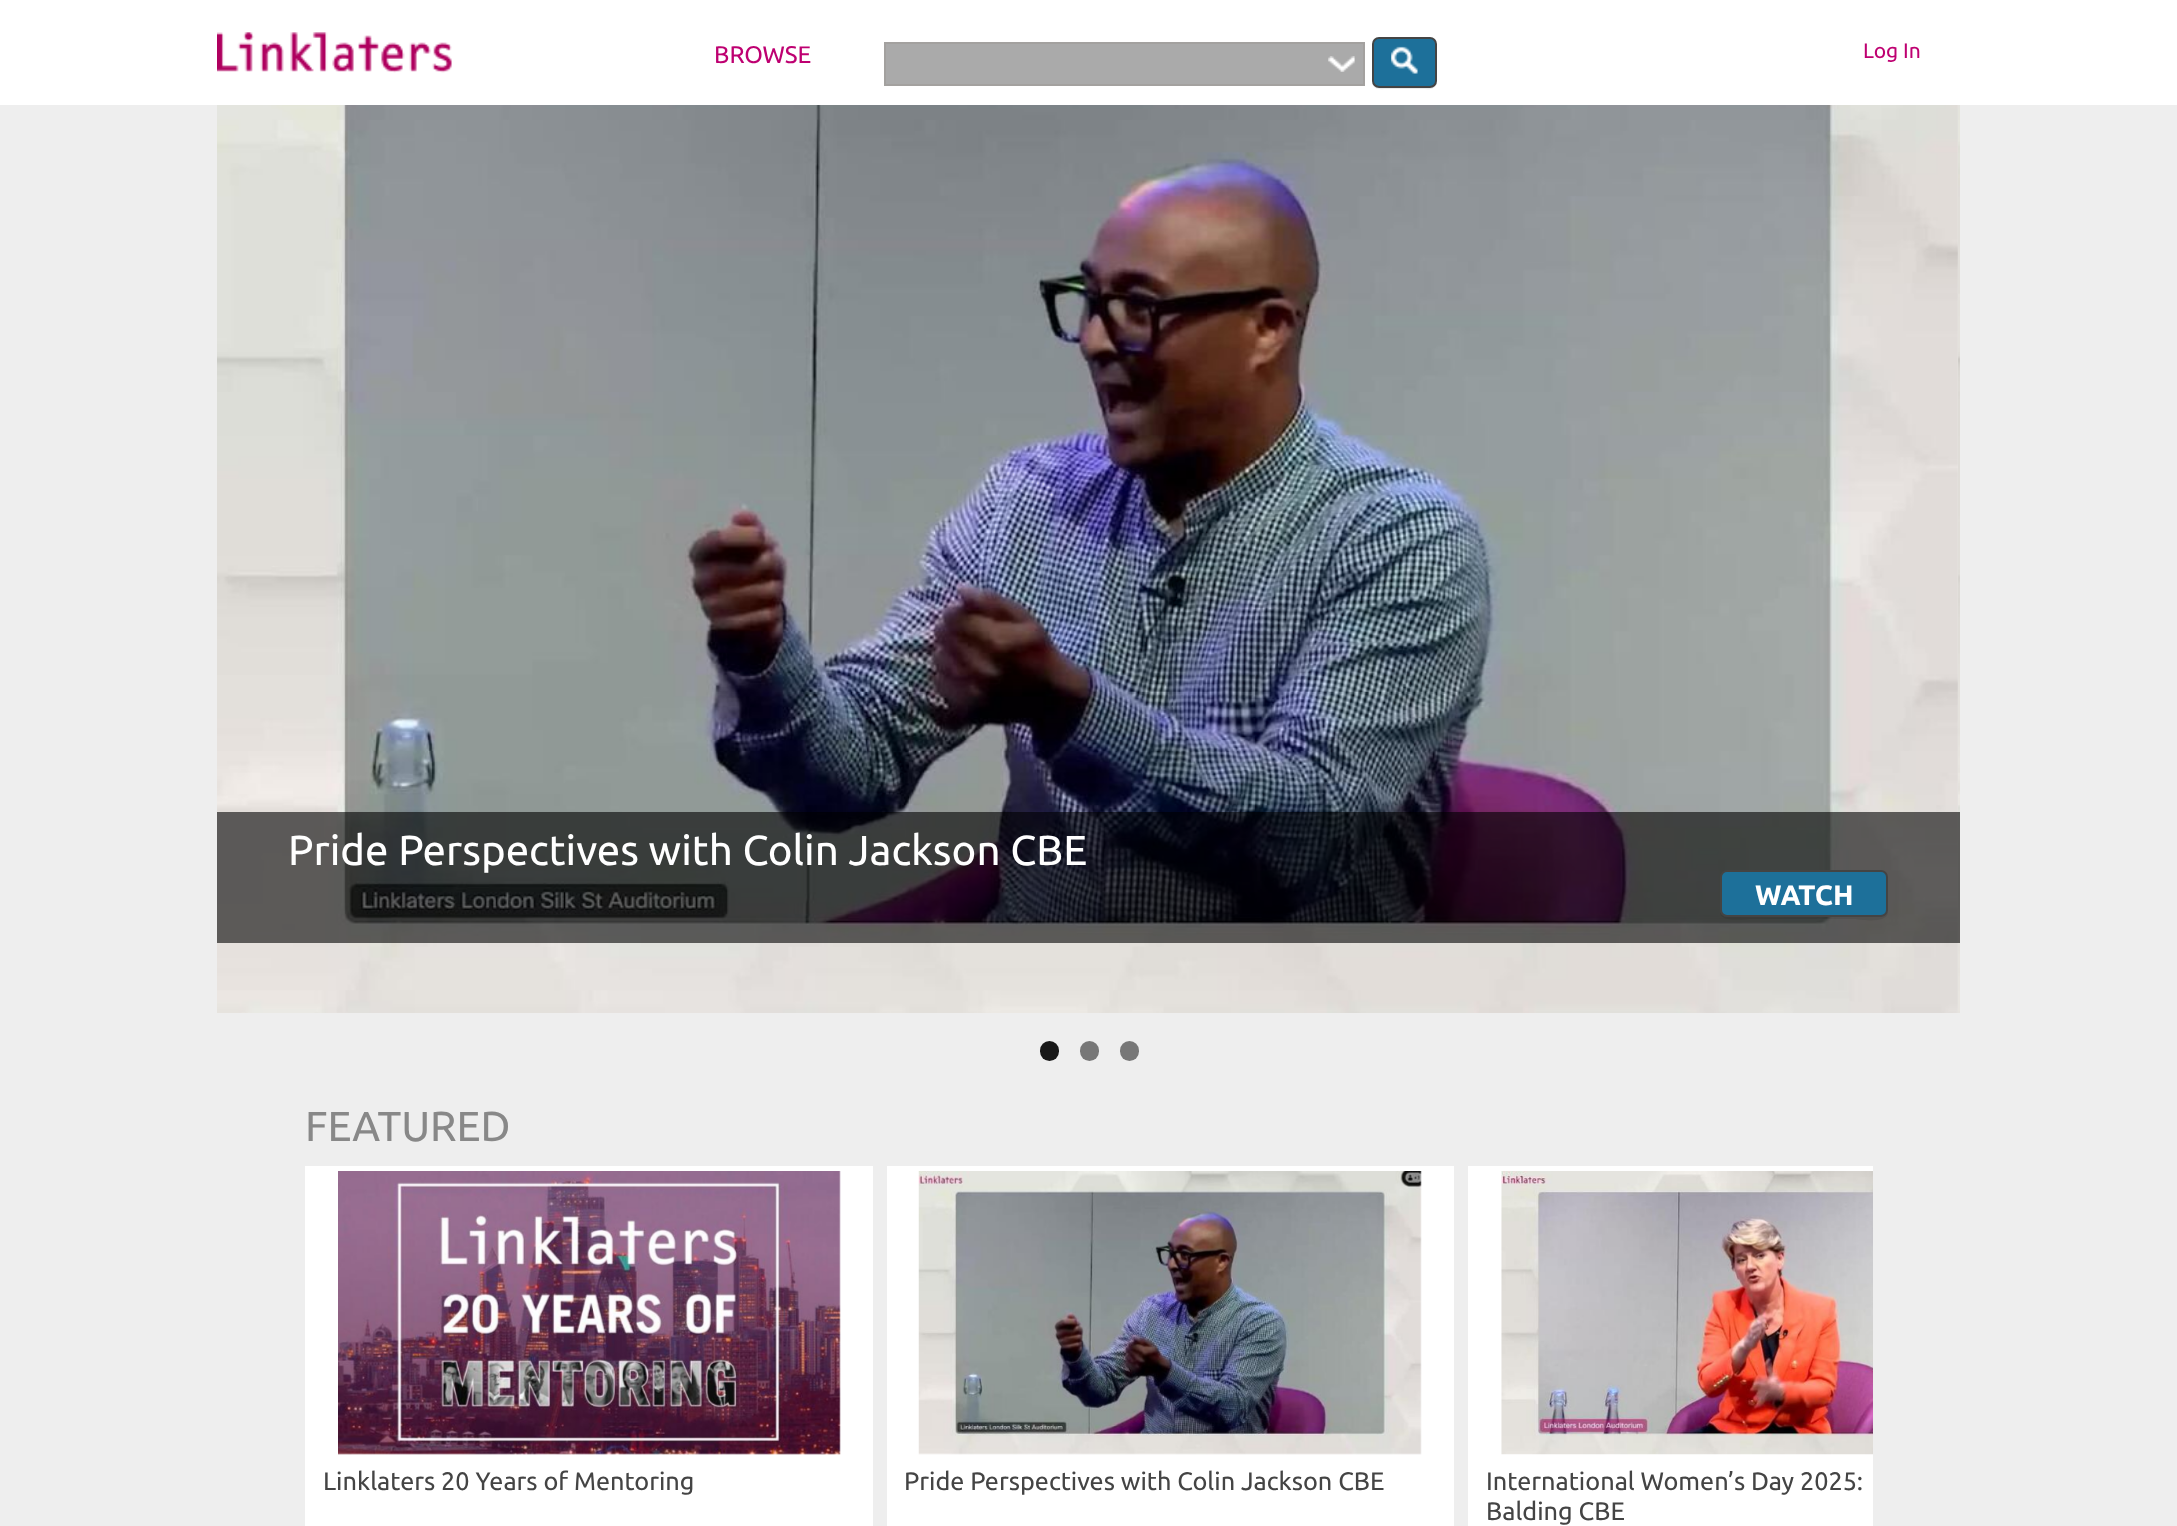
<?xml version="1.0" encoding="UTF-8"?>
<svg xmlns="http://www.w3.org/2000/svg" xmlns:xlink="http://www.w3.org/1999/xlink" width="2177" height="1526">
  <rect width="100%" height="100%" fill="#eeeeee" />
  <rect width="2177" height="105" fill="#ffffff" />
  <image x="217" y="32" width="235" height="41" xlink:href="image1.png" />
  <rect x="885" y="43" width="479" height="42" fill="#aaaaaa" stroke="#a3a19f" stroke-width="2" />
  <path d="M 1372 80 c 0 11 8 9 16 9 h 34 c 5 0 13 2 15 -6 v -39 v 36 c 0 4 -3 8 -7 8 h -51 c -4 0 -7 -4 -7 -8 z" fill="#ebebeb" />
  <rect x="1373" y="38" width="63" height="49" rx="6" fill="#1d709a" stroke="#444444" stroke-width="2" />
  <image x="1391" y="46" width="27" height="28" xlink:href="image2.png" />
  <image x="1328" y="56" width="27" height="16" xlink:href="image3.png" />
  <image x="217" y="105" width="1741" height="908" xlink:href="image4.png" />
  <rect x="217" y="812" width="1741" height="131" fill="#000000" fill-opacity="0.6" />
  <path d="M 1720 877 v 36 c 2 10 23 6 33 6 h 102 c 1 0 33 6 33 -7 c -1 3 -4 5 -7 5 h -154 c -4 0 -7 -3 -7 -7 z" fill="#000000" fill-opacity="0.08" />
  <rect x="1721" y="871" width="166" height="45" rx="6" fill="#1d709a" stroke="#444444" stroke-width="2" />
  <image x="1958" y="105" width="2" height="908" xlink:href="image5.png" />
  <rect x="1958" y="812" width="2" height="131" fill="#000000" fill-opacity="0.6" />
  <rect x="1040" y="1041" width="19" height="20" rx="9.5" fill="#181818" />
  <rect x="1080" y="1041" width="19" height="20" rx="9.5" fill="#777777" />
  <rect x="1120" y="1041" width="19" height="20" rx="9.5" fill="#777777" />
  <rect x="305" y="1166" width="568" height="360" fill="#ffffff" />
  <image x="338" y="1171" width="503" height="284" xlink:href="image6.png" />
  <rect x="887" y="1166" width="567" height="360" fill="#ffffff" />
  <image x="918" y="1171" width="504" height="284" xlink:href="image7.png" />
  <rect x="1468" y="1166" width="405" height="360" fill="#ffffff" />
  <image x="1501" y="1171" width="372" height="284" xlink:href="image8.png" />
  <text x="714" y="63" style="font-family: Ubuntu; font-size: 24px; fill: #be0071">BROWSE</text>
  <text x="1863" y="58" style="font-family: Ubuntu; font-size: 21px; fill: #be0071">Log In</text>
  <text x="288" y="865" style="font-family: Ubuntu; font-size: 42px; fill: #ffffff">Pride Perspectives with Colin Jackson CBE</text>
  <text x="1755" y="905" style="font-family: Ubuntu; font-size: 28px; font-weight: bold; fill: #ffffff">WATCH</text>
  <text x="305" y="1141" style="font-family: Ubuntu; font-size: 42px; fill: #888888">FEATURED</text>
  <text x="323" y="1490" style="font-family: Ubuntu; font-size: 25.25px; fill: #444444">Linklaters 20 Years of Mentoring</text>
  <text x="904" y="1490" style="font-family: Ubuntu; font-size: 25.25px; fill: #444444">Pride Perspectives with Colin Jackson CBE</text>
  <text x="1486" y="1490" style="font-family: Ubuntu; font-size: 25.25px; fill: #444444">International Women’s Day 2025:</text>
  <text x="1486" y="1520" style="font-family: Ubuntu; font-size: 25.25px; fill: #444444">Balding CBE</text>
</svg>
